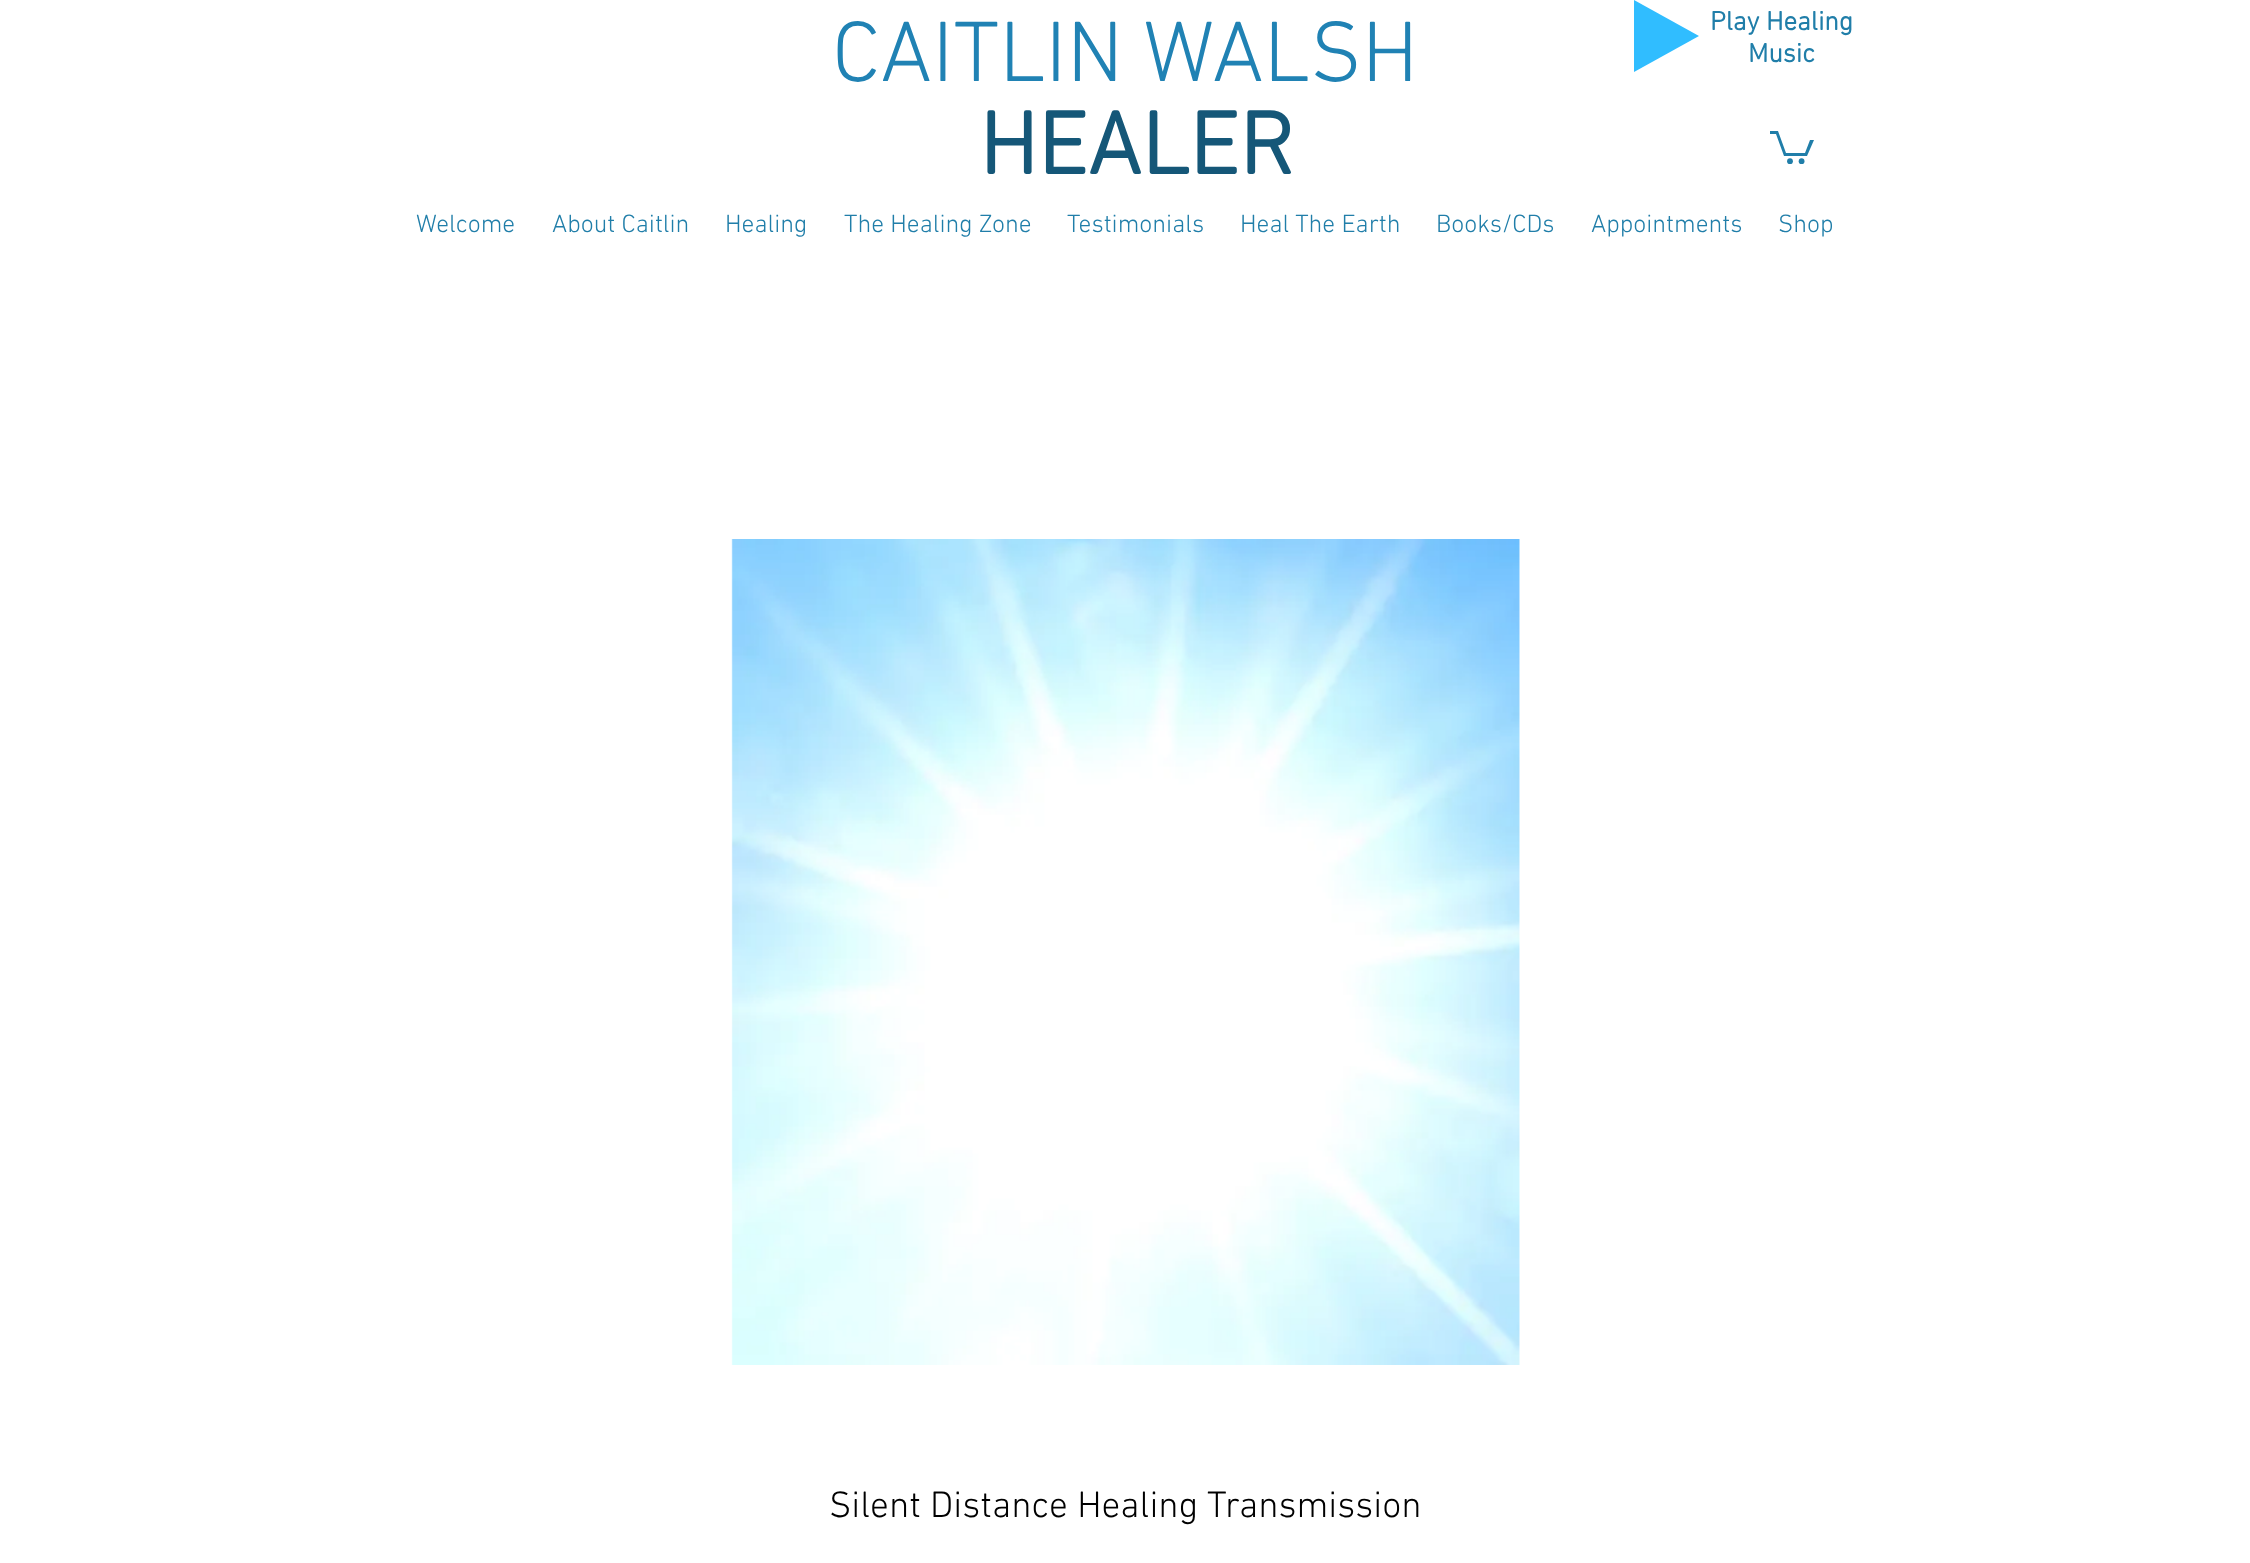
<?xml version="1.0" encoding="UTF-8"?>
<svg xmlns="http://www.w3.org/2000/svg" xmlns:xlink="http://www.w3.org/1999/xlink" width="2250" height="1563">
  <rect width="100%" height="100%" fill="#ffffff" />
  <path d="M 1634 72 v -72 l 65 36 z" fill="#30bdff" />
  <path d="M 1814 140 l -7 16 h -23 l -8 -22 h -6 v -3 h 8 l 8 22 h 19 l 5 -13" fill="#207ea9" />
  <circle cx="1801.6" cy="161.2" r="2.9" fill="#207ea9" />
  <circle cx="1790" cy="161.2" r="2.9" fill="#207ea9" />
  <image x="731" y="539" width="789" height="826" xlink:href="image1.png" />
  <text x="832" y="81" style="font-family: 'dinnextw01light'; font-size: 87px; font-weight: 300; fill: #2082b4">CAITLIN WALSH</text>
  <text x="1710" y="30" style="font-family: 'dinnextw01light'; font-size: 27px; font-weight: bold; fill: #207ea9">Play Healing</text>
  <text x="1748" y="62" style="font-family: 'dinnextw01light'; font-size: 27px; font-weight: bold; fill: #207ea9">Music</text>
  <text x="979" y="174" style="font-family: 'dinnextw01light'; font-size: 90px; font-weight: bold; fill: #155778">HEALER</text>
  <text x="416" y="232" style="font-family: 'dinnextw01light'; font-size: 25.5px; font-weight: 300; fill: #207ea9">Welcome</text>
  <text x="552" y="232" style="font-family: 'dinnextw01light'; font-size: 25.5px; font-weight: 300; fill: #207ea9">About Caitlin</text>
  <text x="725" y="232" style="font-family: 'dinnextw01light'; font-size: 25.5px; font-weight: 300; fill: #207ea9">Healing</text>
  <text x="844" y="232" style="font-family: 'dinnextw01light'; font-size: 25.5px; font-weight: 300; fill: #207ea9">The Healing Zone</text>
  <text x="1067" y="232" style="font-family: 'dinnextw01light'; font-size: 25.5px; font-weight: 300; fill: #207ea9">Testimonials</text>
  <text x="1240" y="232" style="font-family: 'dinnextw01light'; font-size: 25.5px; font-weight: 300; fill: #207ea9">Heal The Earth</text>
  <text x="1436" y="232" style="font-family: 'dinnextw01light'; font-size: 25.5px; font-weight: 300; fill: #207ea9">Books/CDs</text>
  <text x="1591" y="232" style="font-family: 'dinnextw01light'; font-size: 25.5px; font-weight: 300; fill: #207ea9">Appointments</text>
  <text x="1778" y="232" style="font-family: 'dinnextw01light'; font-size: 25.5px; font-weight: 300; fill: #207ea9">Shop</text>
  <text x="829" y="1517" style="font-family: 'dinnextw01light'; font-size: 37.5px; font-weight: 300; fill: #000000">Silent Distance Healing Transmission</text>
</svg>
